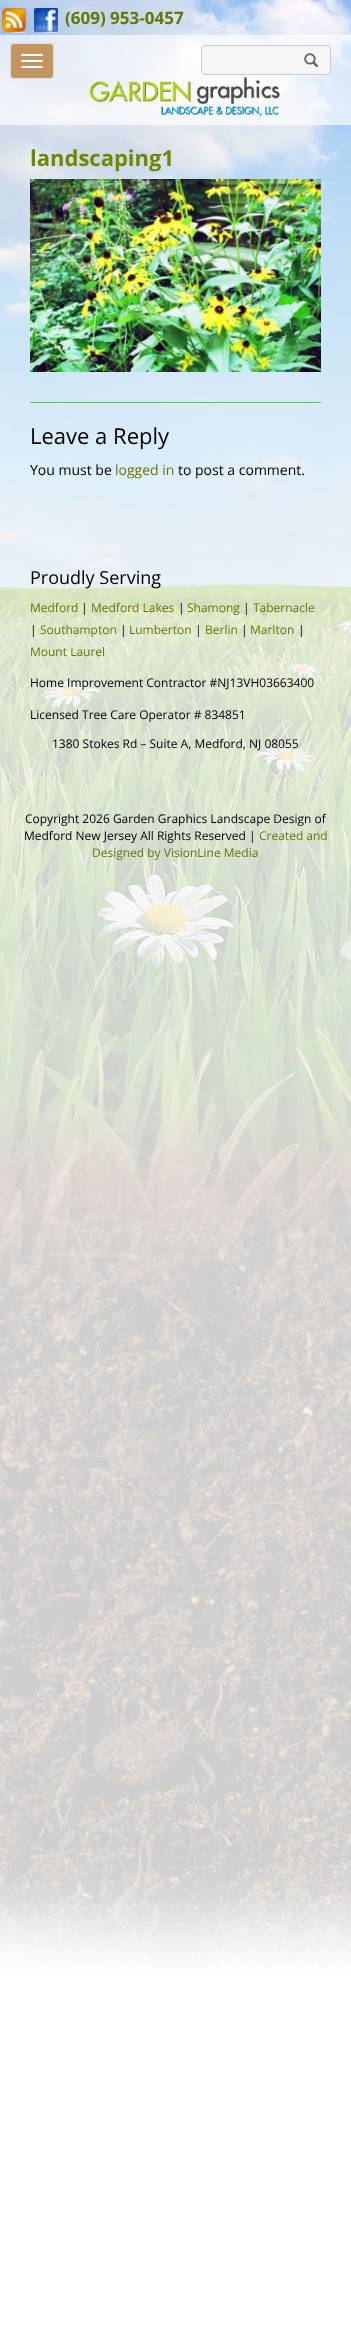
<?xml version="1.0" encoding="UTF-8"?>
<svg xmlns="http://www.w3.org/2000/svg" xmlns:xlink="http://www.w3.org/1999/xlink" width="351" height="2342">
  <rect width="100%" height="100%" fill="#ffffff" />
  <image x="0" y="0" width="351" height="1970" xlink:href="image1.png" />
  <image x="2" y="8" width="24" height="25" xlink:href="image2.png" />
  <image x="34" y="8" width="24" height="25" xlink:href="image3.png" />
  <rect y="35" width="351" height="90" fill="#ffffff" fill-opacity="0.64" />
  <rect x="10.5" y="43.5" width="43" height="35" rx="3.5" fill="#c39560" stroke="#dddddd" />
  <rect x="21" y="54" width="22" height="2" rx="1" fill="#ffffff" />
  <rect x="21" y="60" width="22" height="2" rx="1" fill="#ffffff" />
  <rect x="21" y="66" width="22" height="2" rx="1" fill="#ffffff" />
  <image x="89" y="77" width="191" height="40" xlink:href="image4.png" />
  <path d="M 292 45 h 35 c 2 0 4 2 4 4 v 22 c 0 2 -2 4 -4 4 h -35 z" fill="#f5f5f5" />
  <path d="M 292 45 h 35 c 2 0 4 2 4 4 v 22 c 0 2 -2 4 -4 4 h -35 z m 0 1 h 35 c 1.5 0 3 1.5 3 3 v 22 c 0 1.5 -1.5 3 -3 3 h -35 z" fill="#cccccc" fill-rule="evenodd" />
  <path d="M 205 45 h 88 v 30 h -88 c -2 0 -4 -2 -4 -4 v -22 c 0 -2 2 -4 4 -4 z" fill="#f5f5f5" />
  <path d="M 205 45 h 88 v 30 h -88 c -2 0 -4 -2 -4 -4 v -22 c 0 -2 2 -4 4 -4 z m 0 1 h 88 v 28 h -88 c -2 0 -3 -1 -3 -3 v -22 c 0 -2 1 -3 3 -3 z" fill="#cccccc" fill-rule="evenodd" />
  <image x="304" y="53" width="15" height="15" xlink:href="image5.png" />
  <image x="30" y="179" width="291" height="193" xlink:href="image6.png" />
  <rect x="30" y="402" width="291" height="1" fill="#5ec745" />
  <text x="65" y="24" style="font-family: Open Sans; font-size: 17px; font-weight: bold; fill: #647805">(609) 953-0457</text>
  <text x="30" y="166" style="font-family: Open Sans; font-size: 22px; font-weight: bold; fill: #6f8800">landscaping1</text>
  <text x="30" y="444" style="font-family: Open Sans; font-size: 22px; fill: #000000">Leave a Reply</text>
  <text x="30" y="475" style="font-family: Open Sans; font-size: 14px; fill: #000000">You must be</text>
  <text x="115" y="475" style="font-family: Open Sans; font-size: 14px; fill: #647805">logged in</text>
  <text x="178" y="475" style="font-family: Open Sans; font-size: 14px; fill: #000000">to post a comment.</text>
  <text x="30" y="584" style="font-family: Open Sans; font-size: 18px; fill: #000000">Proudly Serving</text>
  <text x="30" y="612" style="font-family: Open Sans; font-size: 12px; fill: #647805">Medford</text>
  <text x="81" y="612" style="font-family: Open Sans; font-size: 12px; fill: #000000">|</text>
  <text x="91" y="612" style="font-family: Open Sans; font-size: 12px; fill: #647805">Medford Lakes</text>
  <text x="178" y="612" style="font-family: Open Sans; font-size: 12px; fill: #000000">|</text>
  <text x="187" y="612" style="font-family: Open Sans; font-size: 12px; fill: #647805">Shamong</text>
  <text x="243" y="612" style="font-family: Open Sans; font-size: 12px; fill: #000000">|</text>
  <text x="253" y="612" style="font-family: Open Sans; font-size: 12px; fill: #647805">Tabernacle</text>
  <text x="30" y="634" style="font-family: Open Sans; font-size: 12px; fill: #000000">|</text>
  <text x="40" y="634" style="font-family: Open Sans; font-size: 12px; fill: #647805">Southampton</text>
  <text x="120" y="634" style="font-family: Open Sans; font-size: 12px; fill: #000000">|</text>
  <text x="129" y="634" style="font-family: Open Sans; font-size: 12px; fill: #647805">Lumberton</text>
  <text x="195" y="634" style="font-family: Open Sans; font-size: 12px; fill: #000000">|</text>
  <text x="205" y="634" style="font-family: Open Sans; font-size: 12px; fill: #647805">Berlin</text>
  <text x="241" y="634" style="font-family: Open Sans; font-size: 12px; fill: #000000">|</text>
  <text x="250" y="634" style="font-family: Open Sans; font-size: 12px; fill: #647805">Marlton</text>
  <text x="298" y="634" style="font-family: Open Sans; font-size: 12px; fill: #000000">|</text>
  <text x="30" y="656" style="font-family: Open Sans; font-size: 12px; fill: #647805">Mount Laurel</text>
  <text x="30" y="687" style="font-family: Open Sans; font-size: 12px; fill: #000000">Home Improvement Contractor #NJ13VH03663400</text>
  <text x="30" y="719" style="font-family: Open Sans; font-size: 12px; fill: #000000">Licensed Tree Care Operator # 834851</text>
  <text x="52" y="748" style="font-family: Open Sans; font-size: 12px; fill: #000000">1380 Stokes Rd – Suite A, Medford, NJ 08055</text>
  <text x="25" y="823" style="font-family: Open Sans; font-size: 12px; fill: #000000">Copyright 2026 Garden Graphics Landscape Design of</text>
  <text x="24" y="840" style="font-family: Open Sans; font-size: 12px; fill: #000000">Medford New Jersey All Rights Reserved |</text>
  <text x="259" y="840" style="font-family: Open Sans; font-size: 12px; fill: #647805">Created and</text>
  <text x="92" y="857" style="font-family: Open Sans; font-size: 12px; fill: #647805">Designed by VisionLine Media</text>
</svg>
